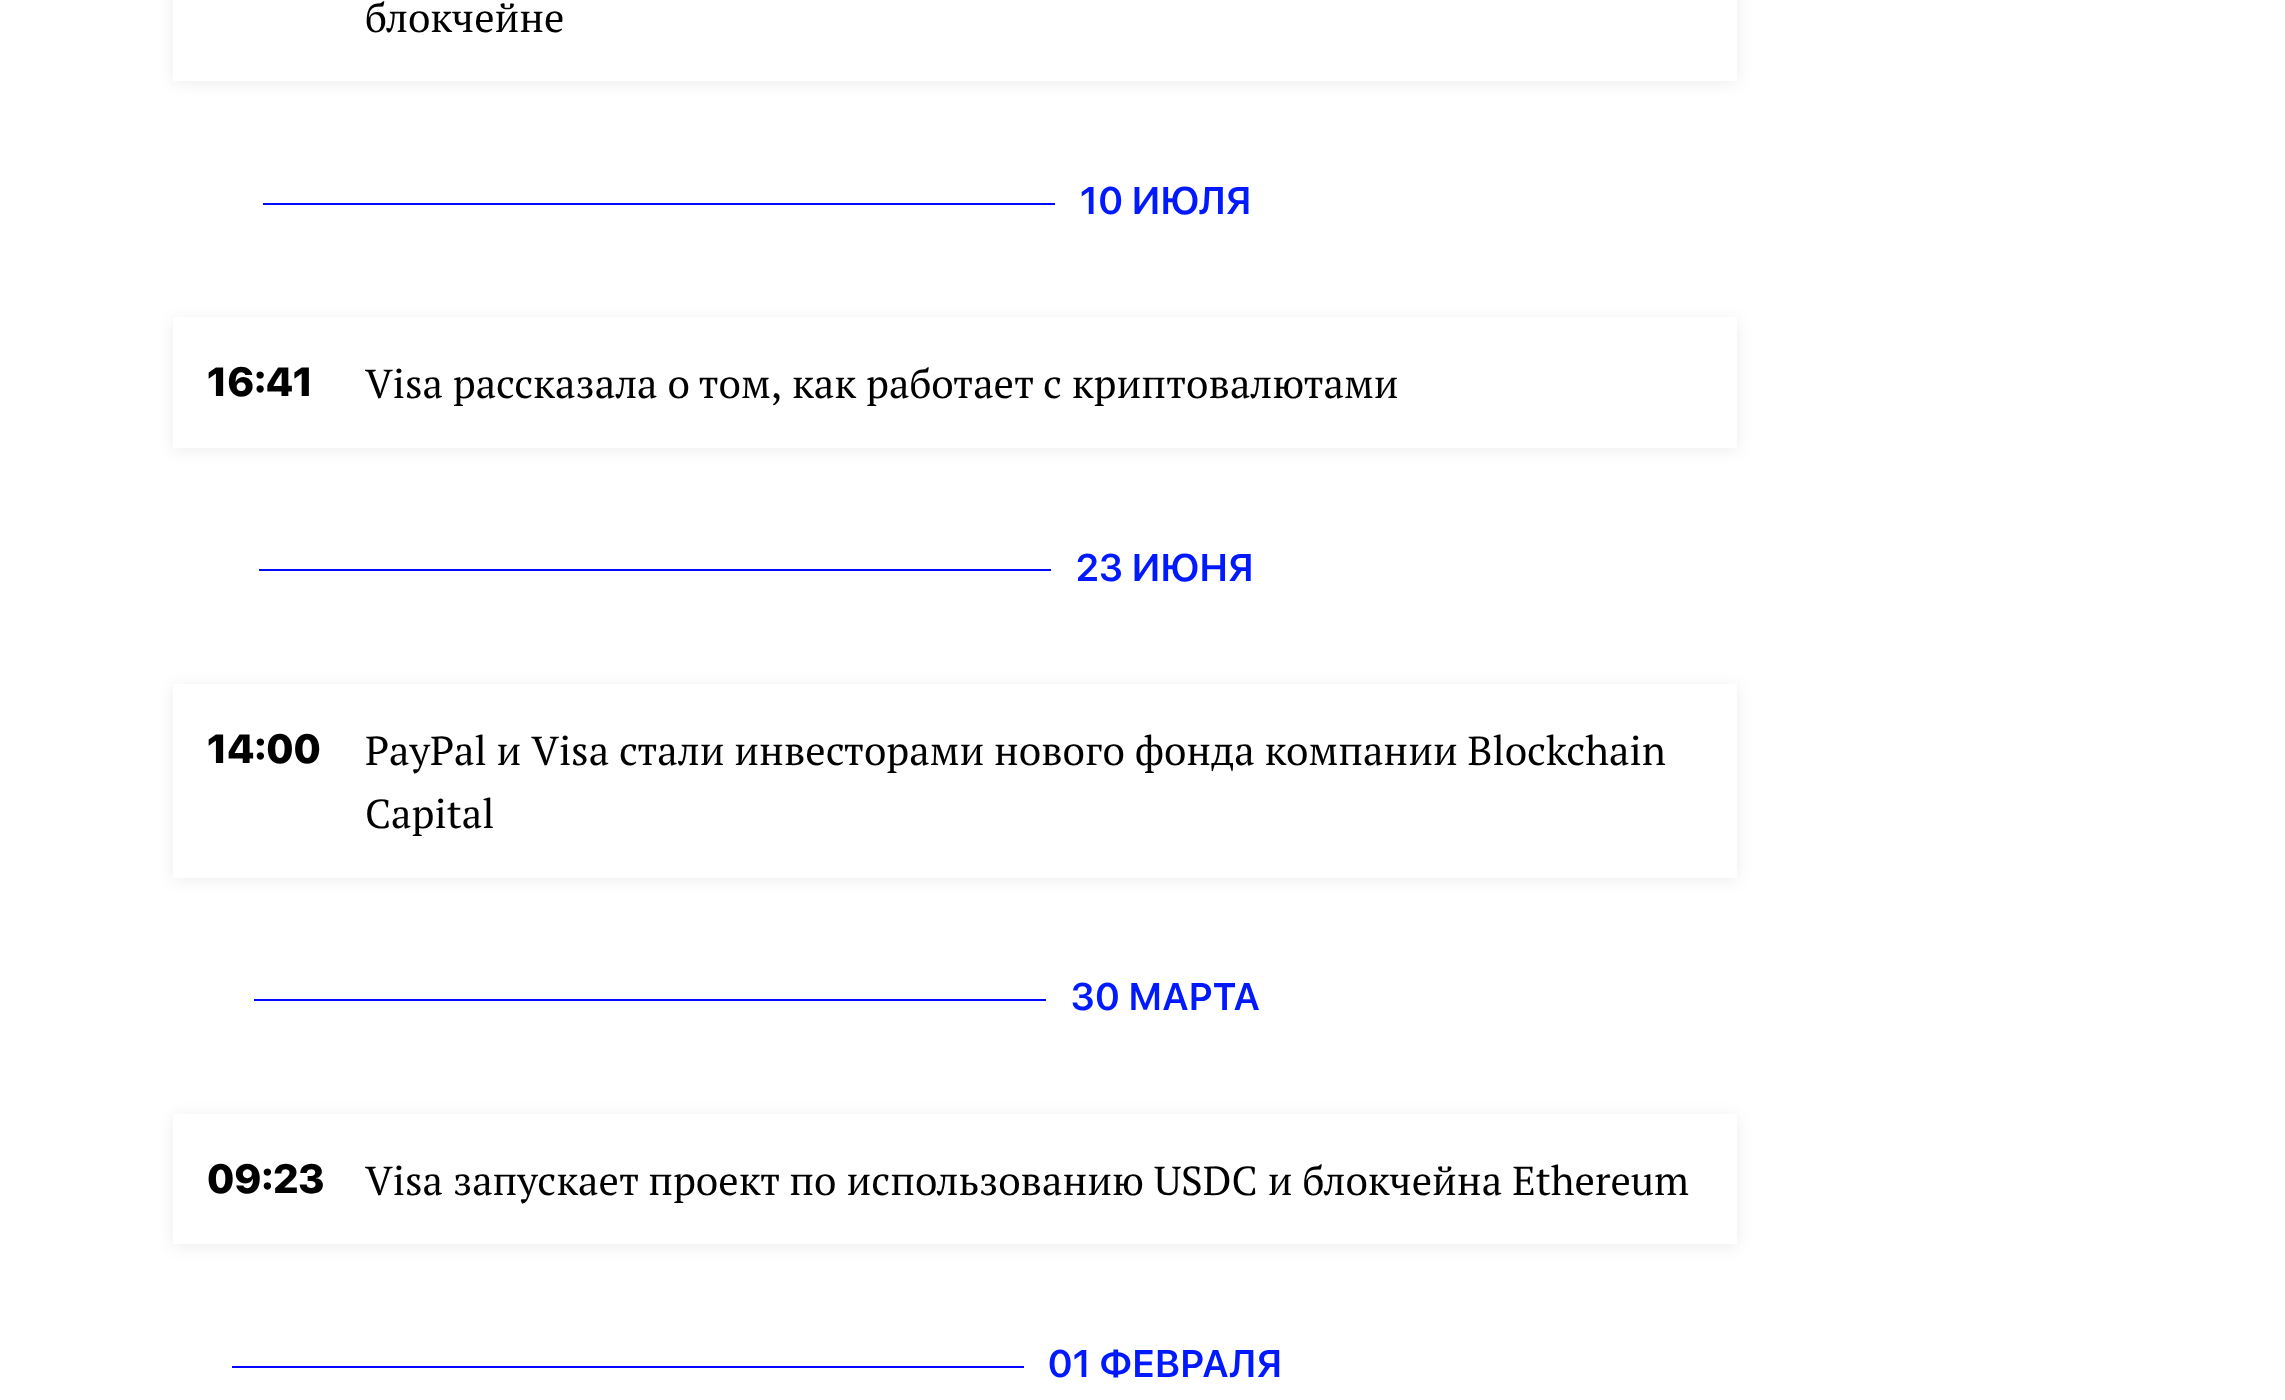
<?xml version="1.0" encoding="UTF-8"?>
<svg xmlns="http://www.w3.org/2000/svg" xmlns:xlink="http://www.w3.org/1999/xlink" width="2285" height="1400">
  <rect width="100%" height="100%" fill="#ffffff" />
  <rect x="173" y="-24" width="1564" height="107" fill="#000000" fill-opacity="0.07" filter="blur(8px)" />
  <rect x="173" width="1564" height="81" fill="#ffffff" />
  <rect x="263" y="203" width="792" height="2" fill="#000aff" />
  <rect x="173" y="320" width="1564" height="130" fill="#000000" fill-opacity="0.07" filter="blur(8px)" />
  <rect x="173" y="317" width="1564" height="131" fill="#ffffff" />
  <rect x="259" y="569" width="792" height="2" fill="#000aff" />
  <rect x="173" y="686" width="1564" height="194" fill="#000000" fill-opacity="0.07" filter="blur(8px)" />
  <rect x="173" y="684" width="1564" height="194" fill="#ffffff" />
  <rect x="254" y="999" width="792" height="2" fill="#000aff" />
  <rect x="173" y="1116" width="1564" height="131" fill="#000000" fill-opacity="0.07" filter="blur(8px)" />
  <rect x="173" y="1114" width="1564" height="130" fill="#ffffff" />
  <rect x="232" y="1366" width="792" height="2" fill="#000aff" />
  <text x="365" y="32" style="font-family: PT Serif; font-size: 40.5px; fill: #000000">блокчейне</text>
  <text x="1080" y="214" style="font-family: SF Pro Display; font-size: 38.25px; font-weight: 600; letter-spacing: 0.75px; fill: #0019ff">10 ИЮЛЯ</text>
  <text x="207" y="396" style="font-family: SF Pro Display; font-size: 40.5px; font-weight: 900; fill: #000000">16:41</text>
  <text x="365" y="398" style="font-family: PT Serif; font-size: 40.5px; fill: #000000">Visa рассказала о том, как работает с криптовалютами</text>
  <text x="1076" y="581" style="font-family: SF Pro Display; font-size: 38.25px; font-weight: 600; letter-spacing: 0.75px; fill: #0019ff">23 ИЮНЯ</text>
  <text x="207" y="763" style="font-family: SF Pro Display; font-size: 40.5px; font-weight: 900; fill: #000000">14:00</text>
  <text x="365" y="765" style="font-family: PT Serif; font-size: 40.5px; fill: #000000">PayPal и Visa стали инвесторами нового фонда компании Blockchain</text>
  <text x="365" y="828" style="font-family: PT Serif; font-size: 40.5px; fill: #000000">Capital</text>
  <text x="1071" y="1010" style="font-family: SF Pro Display; font-size: 38.25px; font-weight: 600; letter-spacing: 0.75px; fill: #0019ff">30 МАРТА</text>
  <text x="207" y="1193" style="font-family: SF Pro Display; font-size: 40.5px; font-weight: 900; fill: #000000">09:23</text>
  <text x="365" y="1195" word-spacing="0.25" style="font-family: PT Serif; font-size: 40.5px; fill: #000000">Visa запускает проект по использованию USDC и блокчейна Ethereum</text>
  <text x="1048" y="1377" style="font-family: SF Pro Display; font-size: 38.25px; font-weight: 600; letter-spacing: 0.75px; fill: #0019ff">01 ФЕВРАЛЯ</text>
</svg>
